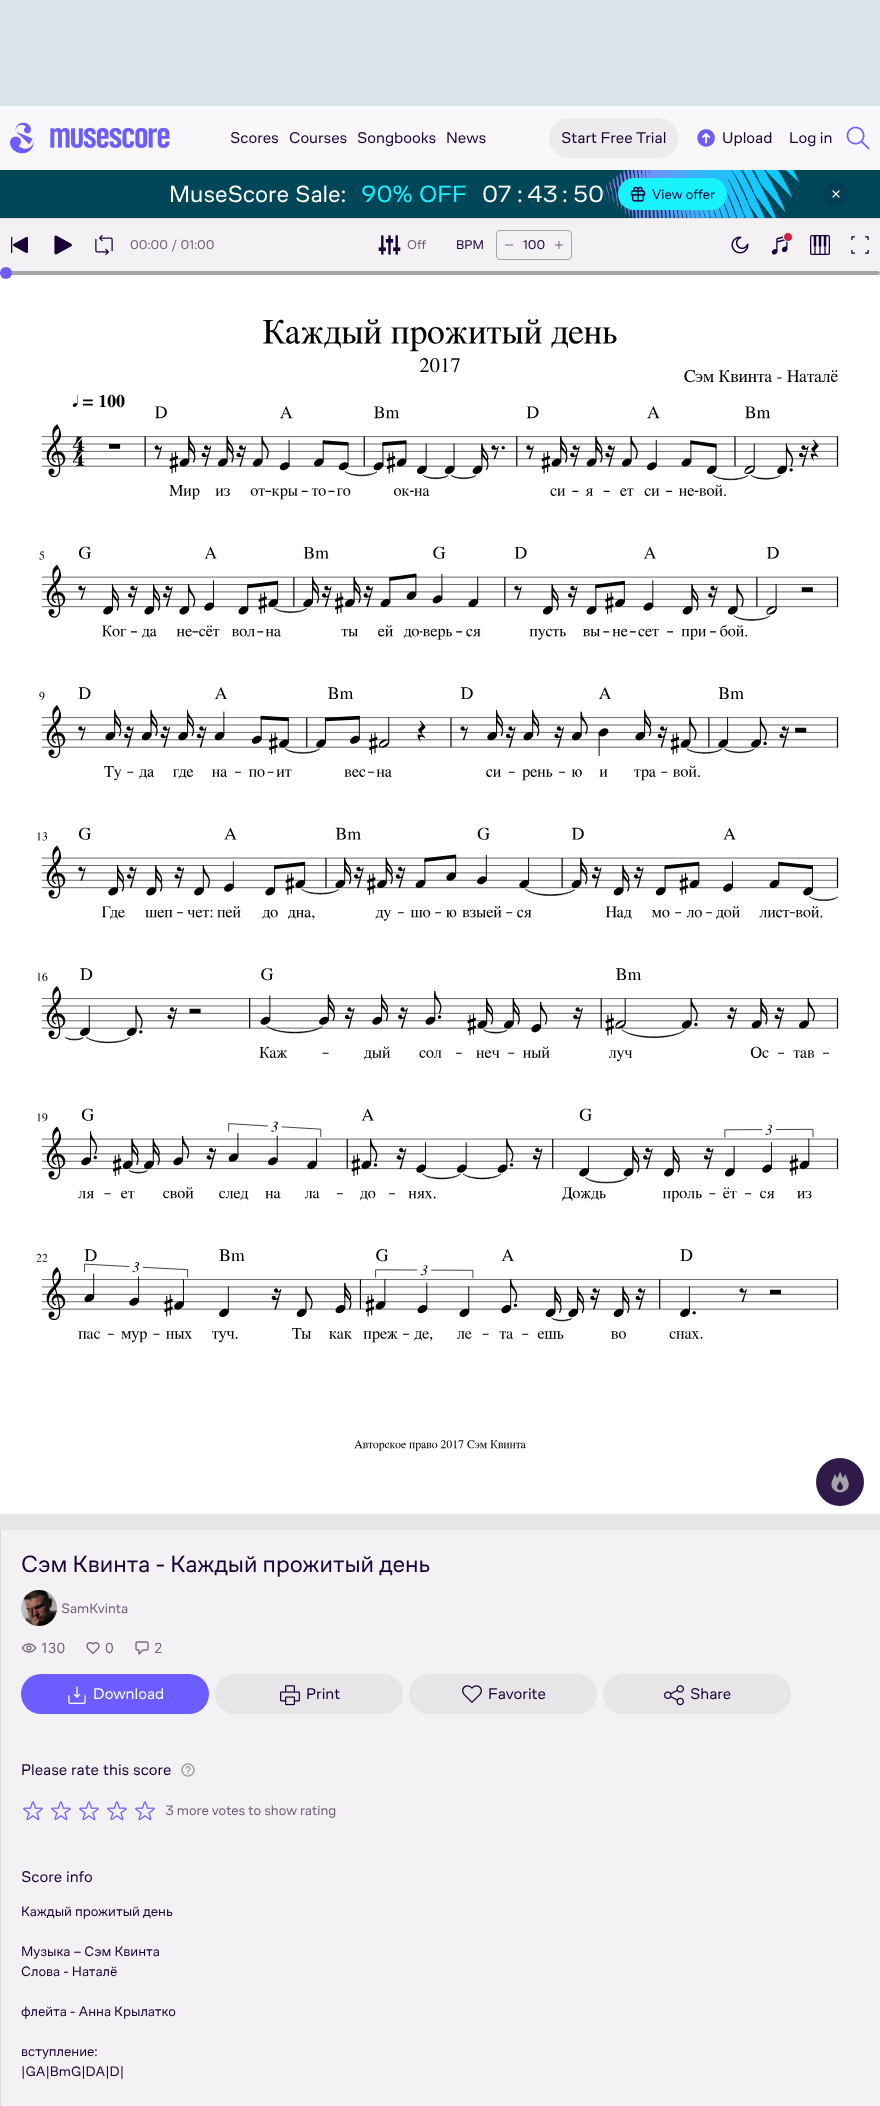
<?xml version="1.0" encoding="UTF-8"?>
<svg xmlns="http://www.w3.org/2000/svg" xmlns:xlink="http://www.w3.org/1999/xlink" width="880" height="2106">
  <rect width="100%" height="100%" fill="#f9f7fa" />
  <rect y="218" width="880" height="1" fill="#e2dee6" />
  <rect width="880" height="106" fill="#dae3e9" />
  <image x="10" y="122" width="160" height="32" xlink:href="image1.png" />
  <rect x="549" y="118" width="129" height="40" rx="20" fill="#edebee" />
  <image x="697" y="129" width="18" height="18" xlink:href="image2.png" />
  <image x="846" y="126" width="24" height="24" xlink:href="image3.png" />
  <rect y="170" width="880" height="48" fill="#004659" />
  <image x="599" y="170" width="201" height="48" xlink:href="image4.png" />
  <rect x="618" y="178" width="109" height="32" rx="16" fill="#19f3ff" />
  <image x="630" y="186" width="16" height="16" xlink:href="image5.png" />
  <circle cx="836" cy="194" r="12" fill="#023f56" />
  <image x="832" y="190" width="8" height="8" xlink:href="image6.png" />
  <rect y="1514" width="880" height="16" fill="#e7e5e8" />
  <rect y="271" width="880" height="1243" fill="#ffffff" />
  <rect y="271" width="880" height="4" rx="2" fill="#a7a4a9" />
  <rect y="219" width="880" height="52" fill="#f3f1f4" />
  <circle cx="6" cy="273" r="6" fill="#6b5dfe" />
  <image x="11" y="236" width="17" height="18" xlink:href="image7.png" />
  <image x="54" y="235" width="18" height="20" xlink:href="image8.png" />
  <image x="95" y="235" width="18" height="20" xlink:href="image9.png" />
  <image x="378" y="235" width="23" height="20" xlink:href="image10.png" />
  <rect x="496.5" y="230.5" width="75" height="29" rx="3.5" fill="none" stroke="#a7a4a9" />
  <image x="504" y="244" width="10" height="2" xlink:href="image11.png" />
  <image x="554" y="240" width="10" height="10" xlink:href="image12.png" />
  <image x="731" y="236" width="18" height="18" xlink:href="image13.png" />
  <image x="771" y="236" width="17" height="19" xlink:href="image14.png" />
  <circle cx="788" cy="237" r="4.5" fill="#d32139" stroke="#f9f7fa" />
  <image x="810" y="235" width="20" height="20" xlink:href="image15.png" />
  <image x="851" y="236" width="18" height="18" xlink:href="image16.png" />
  <image x="36" y="319" width="803" height="1132" xlink:href="image17.png" />
  <circle cx="840" cy="1482" r="24" fill="#2f1a4a" />
  <image x="831" y="1471" width="18" height="22" xlink:href="image18.png" />
  <rect x="1" y="1530" width="879" height="576" fill="#f3f1f4" />
  <rect y="1530" width="1" height="576" fill="#ddd9e1" />
  <image x="21" y="1590" width="36" height="36" xlink:href="image19.png" />
  <image x="21" y="1643" width="16" height="10" xlink:href="image20.png" />
  <image x="86" y="1642" width="14" height="12" xlink:href="image21.png" />
  <image x="135" y="1641" width="14" height="14" xlink:href="image22.png" />
  <rect x="21" y="1674" width="188" height="40" rx="20" fill="#6b5dfe" />
  <image x="68" y="1686" width="18" height="18" xlink:href="image23.png" />
  <rect x="215" y="1674" width="188" height="40" rx="20" fill="#e7e5e8" />
  <image x="280" y="1685" width="20" height="21" xlink:href="image24.png" />
  <rect x="409" y="1674" width="188" height="40" rx="20" fill="#e7e5e8" />
  <image x="462" y="1685" width="20" height="18" xlink:href="image25.png" />
  <rect x="603" y="1674" width="188" height="40" rx="20" fill="#e7e5e8" />
  <image x="664" y="1685" width="20" height="21" xlink:href="image26.png" />
  <image x="181" y="1763" width="14" height="14" xlink:href="image27.png" />
  <image x="23" y="1801" width="20" height="20" xlink:href="image28.png" />
  <image x="51" y="1801" width="20" height="20" xlink:href="image28.png" />
  <image x="79" y="1801" width="20" height="20" xlink:href="image28.png" />
  <image x="107" y="1801" width="20" height="20" xlink:href="image28.png" />
  <image x="135" y="1801" width="20" height="20" xlink:href="image28.png" />
  <text x="230" y="143" style="font-family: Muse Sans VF; font-size: 16px; fill: #180036">Scores</text>
  <text x="289" y="143" style="font-family: Muse Sans VF; font-size: 16px; fill: #180036">Courses</text>
  <text x="357" y="143" style="font-family: Muse Sans VF; font-size: 16px; fill: #180036">Songbooks</text>
  <text x="446" y="143" style="font-family: Muse Sans VF; font-size: 16px; fill: #180036">News</text>
  <text x="561" y="143" style="font-family: Muse Sans VF; font-size: 16px; fill: #180036">Start Free Trial</text>
  <text x="722" y="143" style="font-family: Muse Sans VF; font-size: 16px; fill: #180036">Upload</text>
  <text x="789" y="143" style="font-family: Muse Sans VF; font-size: 16px; fill: #180036">Log in</text>
  <text x="169" y="202" style="font-family: Muse Sans VF; font-size: 24px; fill: #ffffff">MuseScore</text>
  <text x="295" y="202" style="font-family: Muse Sans VF; font-size: 24px; fill: #ffffff">Sale:</text>
  <text x="361" y="202" style="font-family: Muse Sans VF; font-size: 24px; fill: #19f3ff">90%</text>
  <text x="419" y="202" style="font-family: Muse Sans VF; font-size: 24px; fill: #19f3ff">OFF</text>
  <text x="482" y="202" style="font-family: Muse Sans VF; font-size: 24px; fill: #ffffff">07</text>
  <text x="517" y="202" style="font-family: Muse Sans VF; font-size: 24px; fill: #ffffff">:</text>
  <text x="527" y="202" style="font-family: Muse Sans VF; font-size: 24px; fill: #ffffff">43</text>
  <text x="562" y="202" style="font-family: Muse Sans VF; font-size: 24px; fill: #ffffff">:</text>
  <text x="573" y="202" style="font-family: Muse Sans VF; font-size: 24px; fill: #ffffff">50</text>
  <text x="652" y="199" style="font-family: Muse Sans VF; font-size: 14px; fill: #180036">View offer</text>
  <text x="130" y="249" style="font-family: Muse Sans VF; font-size: 13px; fill: #6e5f79">00:00 / 01:00</text>
  <text x="407" y="249" style="font-family: Muse Sans VF; font-size: 13px; fill: #6e5f79">Off</text>
  <text x="456" y="249" style="font-family: Muse Sans VF; font-size: 13px; fill: #180036">BPM</text>
  <text x="523" y="249" style="font-family: Muse Sans VF; font-size: 13px; fill: #180036">100</text>
  <text x="21" y="1572" style="font-family: Muse Sans VF; font-size: 24px; fill: #180036">Сэм Квинта - Каждый прожитый день</text>
  <text x="61" y="1613" style="font-family: Muse Sans VF; font-size: 14px; fill: #6e5f79">SamKvinta</text>
  <text x="41" y="1653" style="font-family: Inter; font-size: 14px; fill: #6e5f79">130</text>
  <text x="105" y="1653" style="font-family: Inter; font-size: 14px; fill: #6e5f79">0</text>
  <text x="154" y="1653" style="font-family: Inter; font-size: 14px; fill: #6e5f79">2</text>
  <text x="93" y="1699" style="font-family: Muse Sans VF; font-size: 16px; fill: #ffffff">Download</text>
  <text x="306" y="1699" style="font-family: Muse Sans VF; font-size: 16px; fill: #180036">Print</text>
  <text x="488" y="1699" style="font-family: Muse Sans VF; font-size: 16px; fill: #180036">Favorite</text>
  <text x="690" y="1699" style="font-family: Muse Sans VF; font-size: 16px; fill: #180036">Share</text>
  <text x="21" y="1775" style="font-family: Muse Sans VF; font-size: 16px; fill: #180036">Please</text>
  <text x="71" y="1775" style="font-family: Muse Sans VF; font-size: 16px; fill: #180036">rate</text>
  <text x="103" y="1775" style="font-family: Muse Sans VF; font-size: 16px; fill: #180036">this</text>
  <text x="133" y="1775" style="font-family: Muse Sans VF; font-size: 16px; fill: #180036">score</text>
  <text x="165" y="1815" style="font-family: Muse Sans VF; font-size: 14px; fill: #6e5f79">3 more votes to show rating</text>
  <text x="21" y="1882" style="font-family: Muse Sans VF; font-size: 16px; fill: #180036">Score</text>
  <text x="66" y="1882" style="font-family: Muse Sans VF; font-size: 16px; fill: #180036">info</text>
  <text x="21" y="1916" style="font-family: Muse Sans VF; font-size: 14px; fill: #180036">Каждый прожитый день</text>
  <text x="21" y="1956" style="font-family: Muse Sans VF; font-size: 14px; fill: #180036">Музыка – Сэм Квинта</text>
  <text x="21" y="1976" style="font-family: Muse Sans VF; font-size: 14px; fill: #180036">Слова - Наталё</text>
  <text x="21" y="2016" style="font-family: Muse Sans VF; font-size: 14px; fill: #180036">флейта - Анна Крылатко</text>
  <text x="21" y="2056" style="font-family: Muse Sans VF; font-size: 14px; fill: #180036">вступление:</text>
  <text x="21" y="2076" style="font-family: Muse Sans VF; font-size: 14px; fill: #180036">|GA|BmG|DA|D|</text>
</svg>
